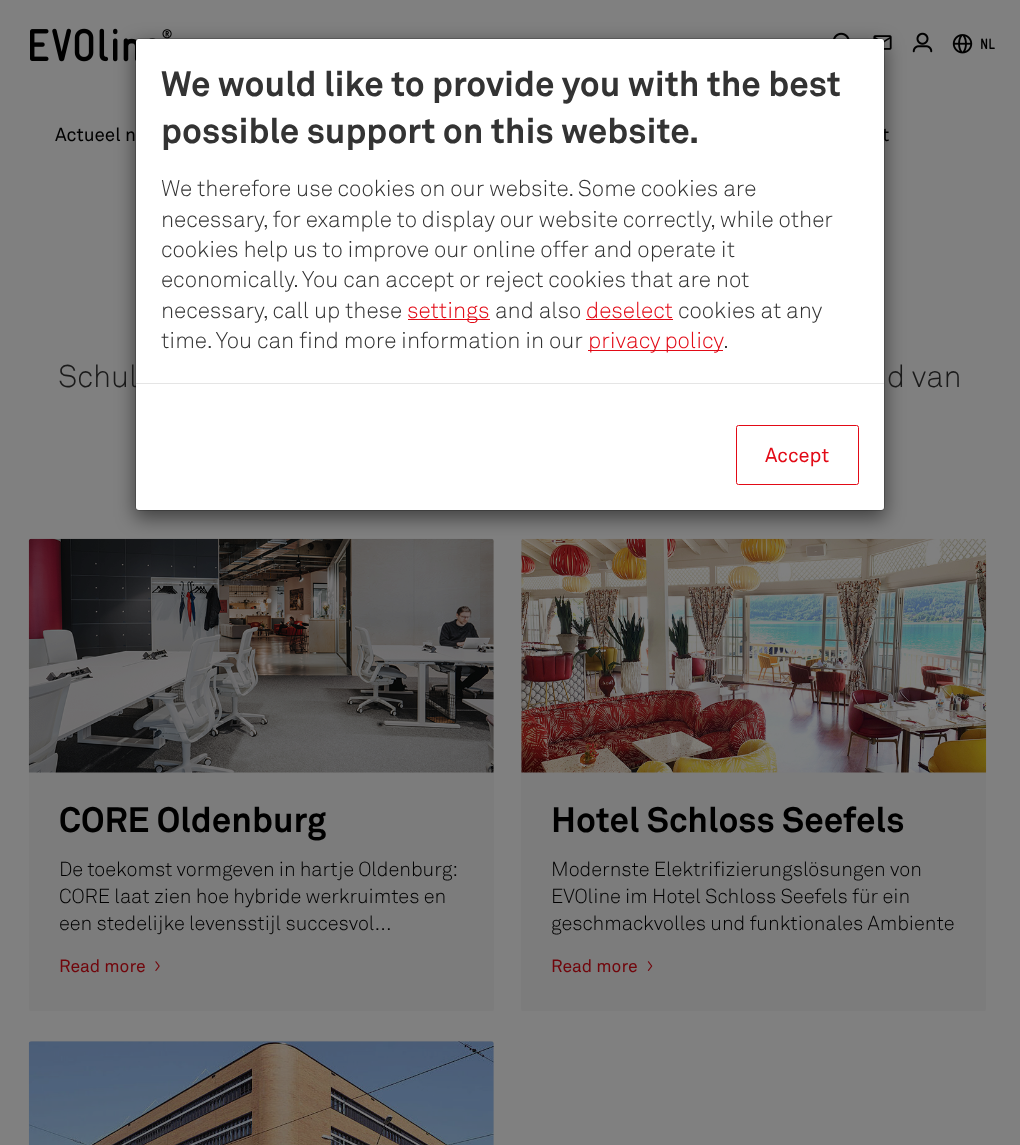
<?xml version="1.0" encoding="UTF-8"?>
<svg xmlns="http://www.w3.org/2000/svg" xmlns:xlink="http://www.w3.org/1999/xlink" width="1020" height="1145">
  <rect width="100%" height="100%" fill="#808080" />
  <image x="30" y="28" width="142" height="34" xlink:href="image1.png" />
  <image x="833" y="32" width="17" height="7" xlink:href="image2.png" />
  <image x="873" y="35" width="19" height="15" xlink:href="image3.png" />
  <image x="912" y="32" width="21" height="21" xlink:href="image4.png" />
  <image x="952" y="34" width="21" height="20" xlink:href="image5.png" />
  <rect x="29" y="539" width="465" height="472" rx="2.5" fill="#7c7c7c" />
  <image x="28" y="538" width="466" height="235" xlink:href="image6.png" />
  <image x="155" y="961" width="5" height="10" xlink:href="image7.png" />
  <rect x="521" y="539" width="465" height="472" rx="2.5" fill="#7c7c7c" />
  <image x="521" y="538" width="466" height="235" xlink:href="image8.png" />
  <image x="647" y="961" width="6" height="10" xlink:href="image9.png" />
  <rect x="29" y="1041" width="465" height="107" rx="2.5" fill="#7c7c7c" />
  <image x="28" y="1041" width="466" height="104" xlink:href="image10.png" />
  <rect x="135" y="44" width="750" height="474" rx="4" fill="#000000" fill-opacity="0.5" filter="blur(9.5px)" />
  <text x="980" y="49" style="font-family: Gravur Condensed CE; font-size: 15px; font-weight: bold; fill: #000000">NL</text>
  <text x="55" y="141" style="font-family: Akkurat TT; font-size: 18.75px; fill: #000000">Actueel n</text>
  <text x="882" y="141" style="font-family: Akkurat TT; font-size: 18.75px; fill: #000000">t</text>
  <text x="58" y="387" style="font-family: Akkurat TT; font-size: 31px; font-weight: 300; fill: #1a1a1a">Schul</text>
  <text x="887" y="387" style="font-family: Akkurat TT; font-size: 31px; font-weight: 300; fill: #1a1a1a">d van</text>
  <text x="59" y="832" style="font-family: Akkurat TT; font-size: 35px; font-weight: bold; fill: #000000">CORE Oldenburg</text>
  <text x="59" y="876" word-spacing="-0.25" style="font-family: Akkurat TT; font-size: 20px; font-weight: 300; fill: #000000">De toekomst vormgeven in hartje Oldenburg:</text>
  <text x="59" y="903" style="font-family: Akkurat TT; font-size: 20px; font-weight: 300; fill: #000000">CORE laat zien hoe hybride werkruimtes en</text>
  <text x="59" y="930" style="font-family: Akkurat TT; font-size: 20px; font-weight: 300; fill: #000000">een stedelijke levensstijl succesvol…</text>
  <text x="59" y="972" style="font-family: Akkurat TT; font-size: 17.5px; fill: #71050b">Read more</text>
  <text x="551" y="832" style="font-family: Akkurat TT; font-size: 35px; font-weight: bold; fill: #000000">Hotel Schloss Seefels</text>
  <text x="551" y="876" style="font-family: Akkurat TT; font-size: 20px; font-weight: 300; fill: #000000">Modernste Elektrifizierungslösungen von</text>
  <text x="551" y="903" style="font-family: Akkurat TT; font-size: 20px; font-weight: 300; fill: #000000">EVOline im Hotel Schloss Seefels für ein</text>
  <text x="551" y="930" style="font-family: Akkurat TT; font-size: 20px; font-weight: 300; fill: #000000">geschmackvolles und funktionales Ambiente</text>
  <text x="551" y="972" style="font-family: Akkurat TT; font-size: 17.5px; fill: #71050b">Read more</text>
  <rect x="136" y="39" width="748" height="471" rx="2.5" fill="#ffffff" />
  <rect x="135.5" y="38.5" width="749" height="472" rx="3.5" fill="none" stroke="#000000" stroke-opacity="0.2" />
  <text x="161" y="96" style="font-family: Akkurat TT; font-size: 35px; font-weight: bold; fill: #333333">We would like to provide you with the best</text>
  <text x="161" y="143" style="font-family: Akkurat TT; font-size: 35px; font-weight: bold; fill: #333333">possible support on this website.</text>
  <text x="161" y="196" style="font-family: Akkurat TT; font-size: 22.5px; font-weight: 300; fill: #333333">We therefore use cookies on our website. Some cookies are</text>
  <text x="161" y="227" style="font-family: Akkurat TT; font-size: 22.5px; font-weight: 300; fill: #333333">necessary, for example to display our website correctly, while other</text>
  <text x="161" y="257" style="font-family: Akkurat TT; font-size: 22.5px; font-weight: 300; fill: #333333">cookies help us to improve our online offer and operate it</text>
  <text x="161" y="287" style="font-family: Akkurat TT; font-size: 22.5px; font-weight: 300; fill: #333333">economically. You can accept or reject cookies that are not</text>
  <text x="161" y="318" style="font-family: Akkurat TT; font-size: 22.5px; font-weight: 300; fill: #333333">necessary, call up these</text>
  <rect x="408" y="319" width="82" height="1" fill="#e20a16" />
  <text x="407" y="318" style="font-family: Akkurat TT; font-size: 22.5px; font-weight: 300; fill: #e20a16">settings</text>
  <text x="495" y="318" style="font-family: Akkurat TT; font-size: 22.5px; font-weight: 300; fill: #333333">and also</text>
  <text x="586" y="318" style="font-family: Akkurat TT; font-size: 22.5px; font-weight: 300; fill: #e20a16">deselect</text>
  <rect x="586" y="319" width="87" height="1" fill="#e20a16" />
  <text x="678" y="318" style="font-family: Akkurat TT; font-size: 22.5px; font-weight: 300; fill: #333333">cookies at any</text>
  <text x="161" y="348" style="font-family: Akkurat TT; font-size: 22.5px; font-weight: 300; fill: #333333">time. You can find more information in our</text>
  <rect x="588" y="350" width="135" height="1" fill="#e20a16" />
  <text x="588" y="348" word-spacing="-1" style="font-family: Akkurat TT; font-size: 22.5px; font-weight: 300; fill: #e20a16">privacy policy</text>
  <text x="723" y="348" style="font-family: Akkurat TT; font-size: 22.5px; font-weight: 300; fill: #333333">.</text>
  <rect x="136" y="383" width="748" height="1" fill="#e5e5e5" />
  <rect x="736.5" y="425.5" width="122" height="59" rx="2" fill="none" stroke="#e20a16" />
  <text x="765" y="462" style="font-family: Akkurat TT; font-size: 20px; fill: #e20a16">Accept</text>
</svg>
